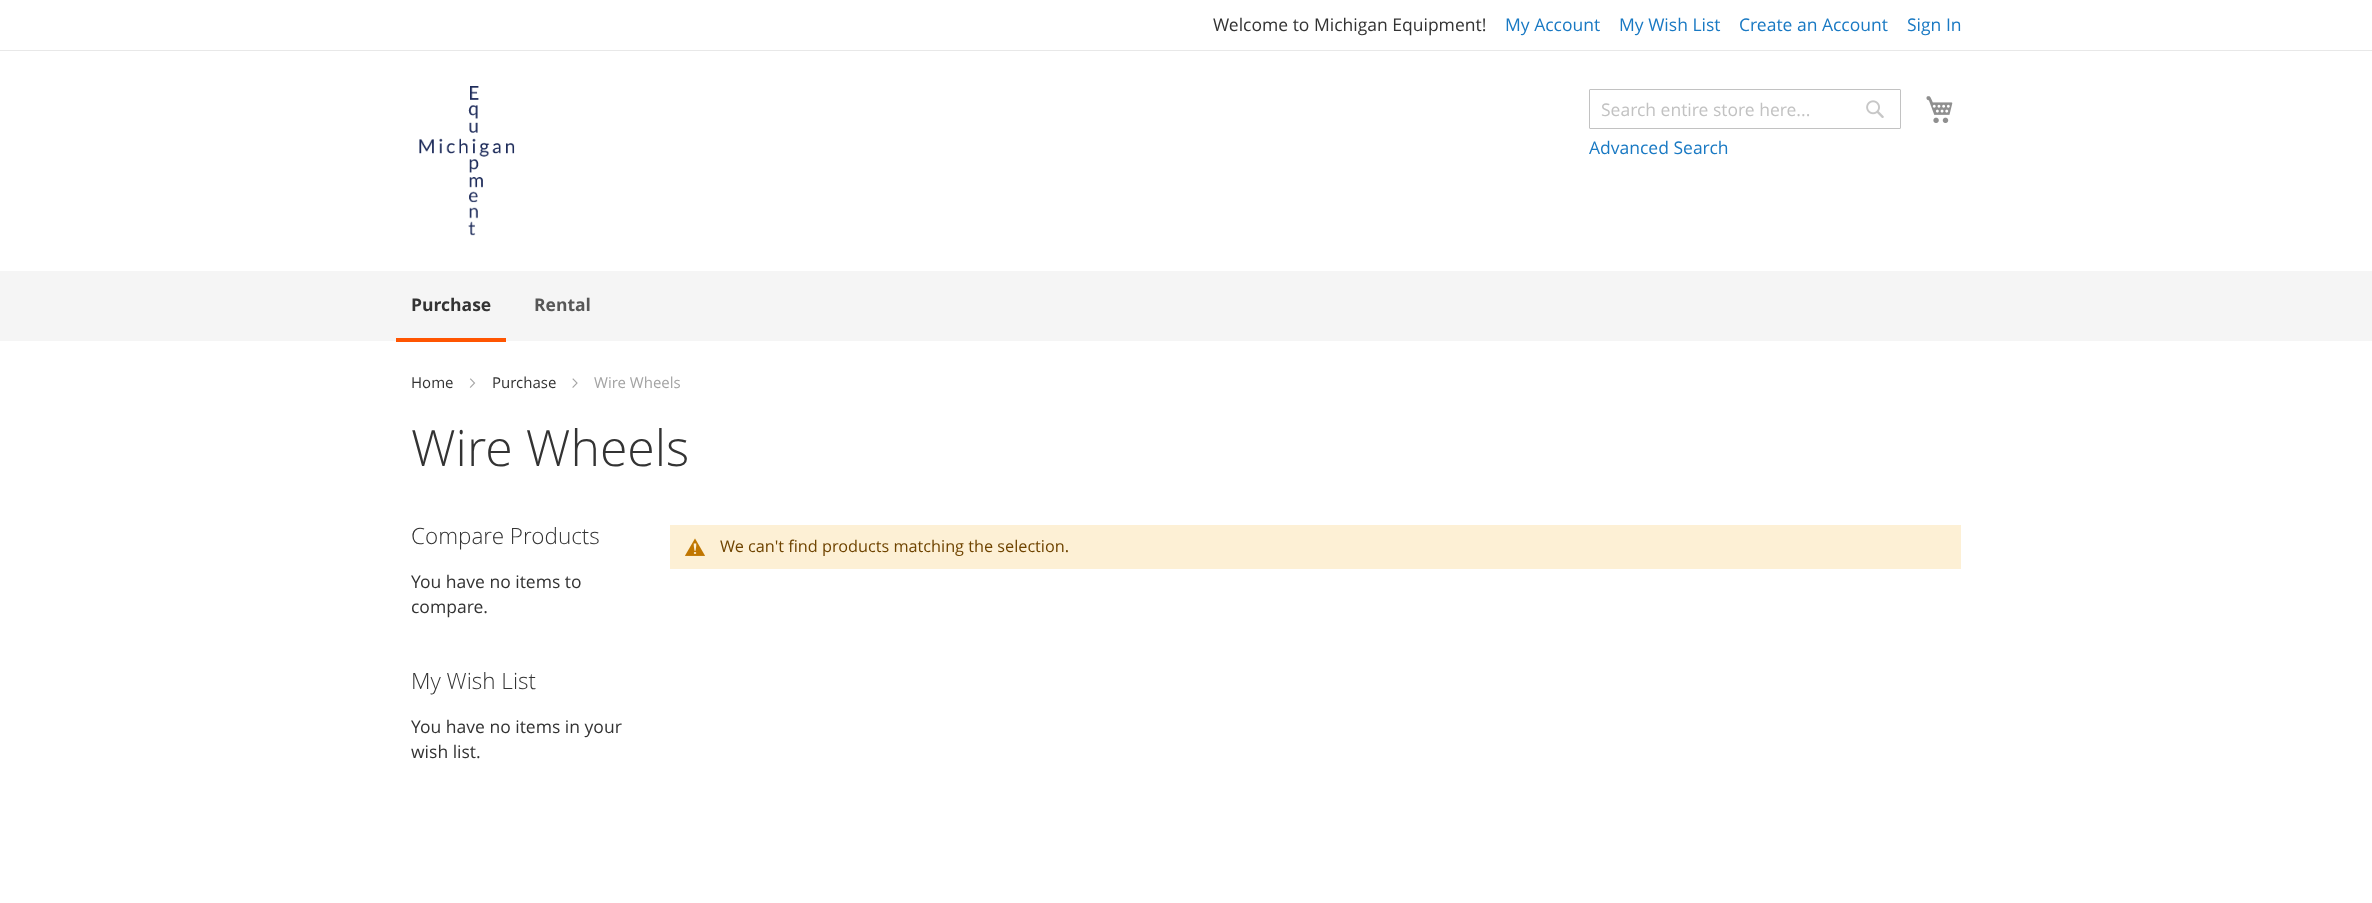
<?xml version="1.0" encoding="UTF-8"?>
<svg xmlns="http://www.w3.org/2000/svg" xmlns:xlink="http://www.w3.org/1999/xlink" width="2372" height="903">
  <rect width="100%" height="100%" fill="#ffffff" />
  <rect y="50" width="2372" height="1" fill="#e8e8e8" />
  <image x="419" y="86" width="96" height="150" xlink:href="image1.png" />
  <rect x="1589.5" y="89.5" width="311" height="39" rx="0.5" fill="none" stroke="#c2c2c2" />
  <image x="1866" y="100" width="18" height="18" xlink:href="image2.png" />
  <image x="1926" y="96" width="27" height="27" xlink:href="image3.png" />
  <rect y="271" width="2372" height="70" fill="#f5f5f5" />
  <rect x="396" y="338" width="110" height="4" fill="#ff5501" />
  <image x="469" y="378" width="7" height="10" xlink:href="image4.png" />
  <image x="572" y="378" width="6" height="10" xlink:href="image5.png" />
  <rect x="670" y="525" width="1291" height="44" fill="#fdf0d5" />
  <image x="685" y="538" width="20" height="18" xlink:href="image6.png" />
  <text x="1213" y="31" style="font-family: Open Sans; font-size: 17.5px; fill: #333333">Welcome to Michigan Equipment!</text>
  <text x="1505" y="31" style="font-family: Open Sans; font-size: 17.5px; fill: #1979c3">My Account</text>
  <text x="1619" y="31" style="font-family: Open Sans; font-size: 17.5px; fill: #1979c3">My Wish List</text>
  <text x="1739" y="31" style="font-family: Open Sans; font-size: 17.5px; fill: #1979c3">Create an Account</text>
  <text x="1907" y="31" style="font-family: Open Sans; font-size: 17.5px; fill: #1979c3">Sign In</text>
  <text x="1601" y="116" style="font-family: Open Sans; font-size: 17.5px; fill: #c2c2c2">Search entire store here...</text>
  <text x="1589" y="154" style="font-family: Open Sans; font-size: 17.5px; fill: #1979c3">Advanced Search</text>
  <text x="411" y="311" style="font-family: Open Sans; font-size: 17.5px; font-weight: bold; fill: #333333">Purchase</text>
  <text x="534" y="311" style="font-family: Open Sans; font-size: 17.5px; font-weight: bold; fill: #575757">Rental</text>
  <text x="411" y="388" style="font-family: Open Sans; font-size: 15px; fill: #333333">Home</text>
  <text x="492" y="388" style="font-family: Open Sans; font-size: 15px; fill: #333333">Purchase</text>
  <text x="594" y="388" style="font-family: Open Sans; font-size: 15px; fill: #a3a3a3">Wire Wheels</text>
  <text x="411" y="466" style="font-family: Open Sans; font-size: 50px; font-weight: 300; fill: #333333">Wire Wheels</text>
  <text x="411" y="544" style="font-family: Open Sans; font-size: 22.5px; font-weight: 300; fill: #333333">Compare Products</text>
  <text x="411" y="588" style="font-family: Open Sans; font-size: 17.5px; fill: #333333">You have no items to</text>
  <text x="411" y="613" style="font-family: Open Sans; font-size: 17.5px; fill: #333333">compare.</text>
  <text x="411" y="689" style="font-family: Open Sans; font-size: 22.5px; font-weight: 300; fill: #333333">My Wish List</text>
  <text x="411" y="733" style="font-family: Open Sans; font-size: 17.5px; fill: #333333">You have no items in your</text>
  <text x="411" y="758" style="font-family: Open Sans; font-size: 17.5px; fill: #333333">wish list.</text>
  <text x="720" y="552" style="font-family: Open Sans; font-size: 16.25px; fill: #6f4400">We can't find products matching the selection.</text>
</svg>
